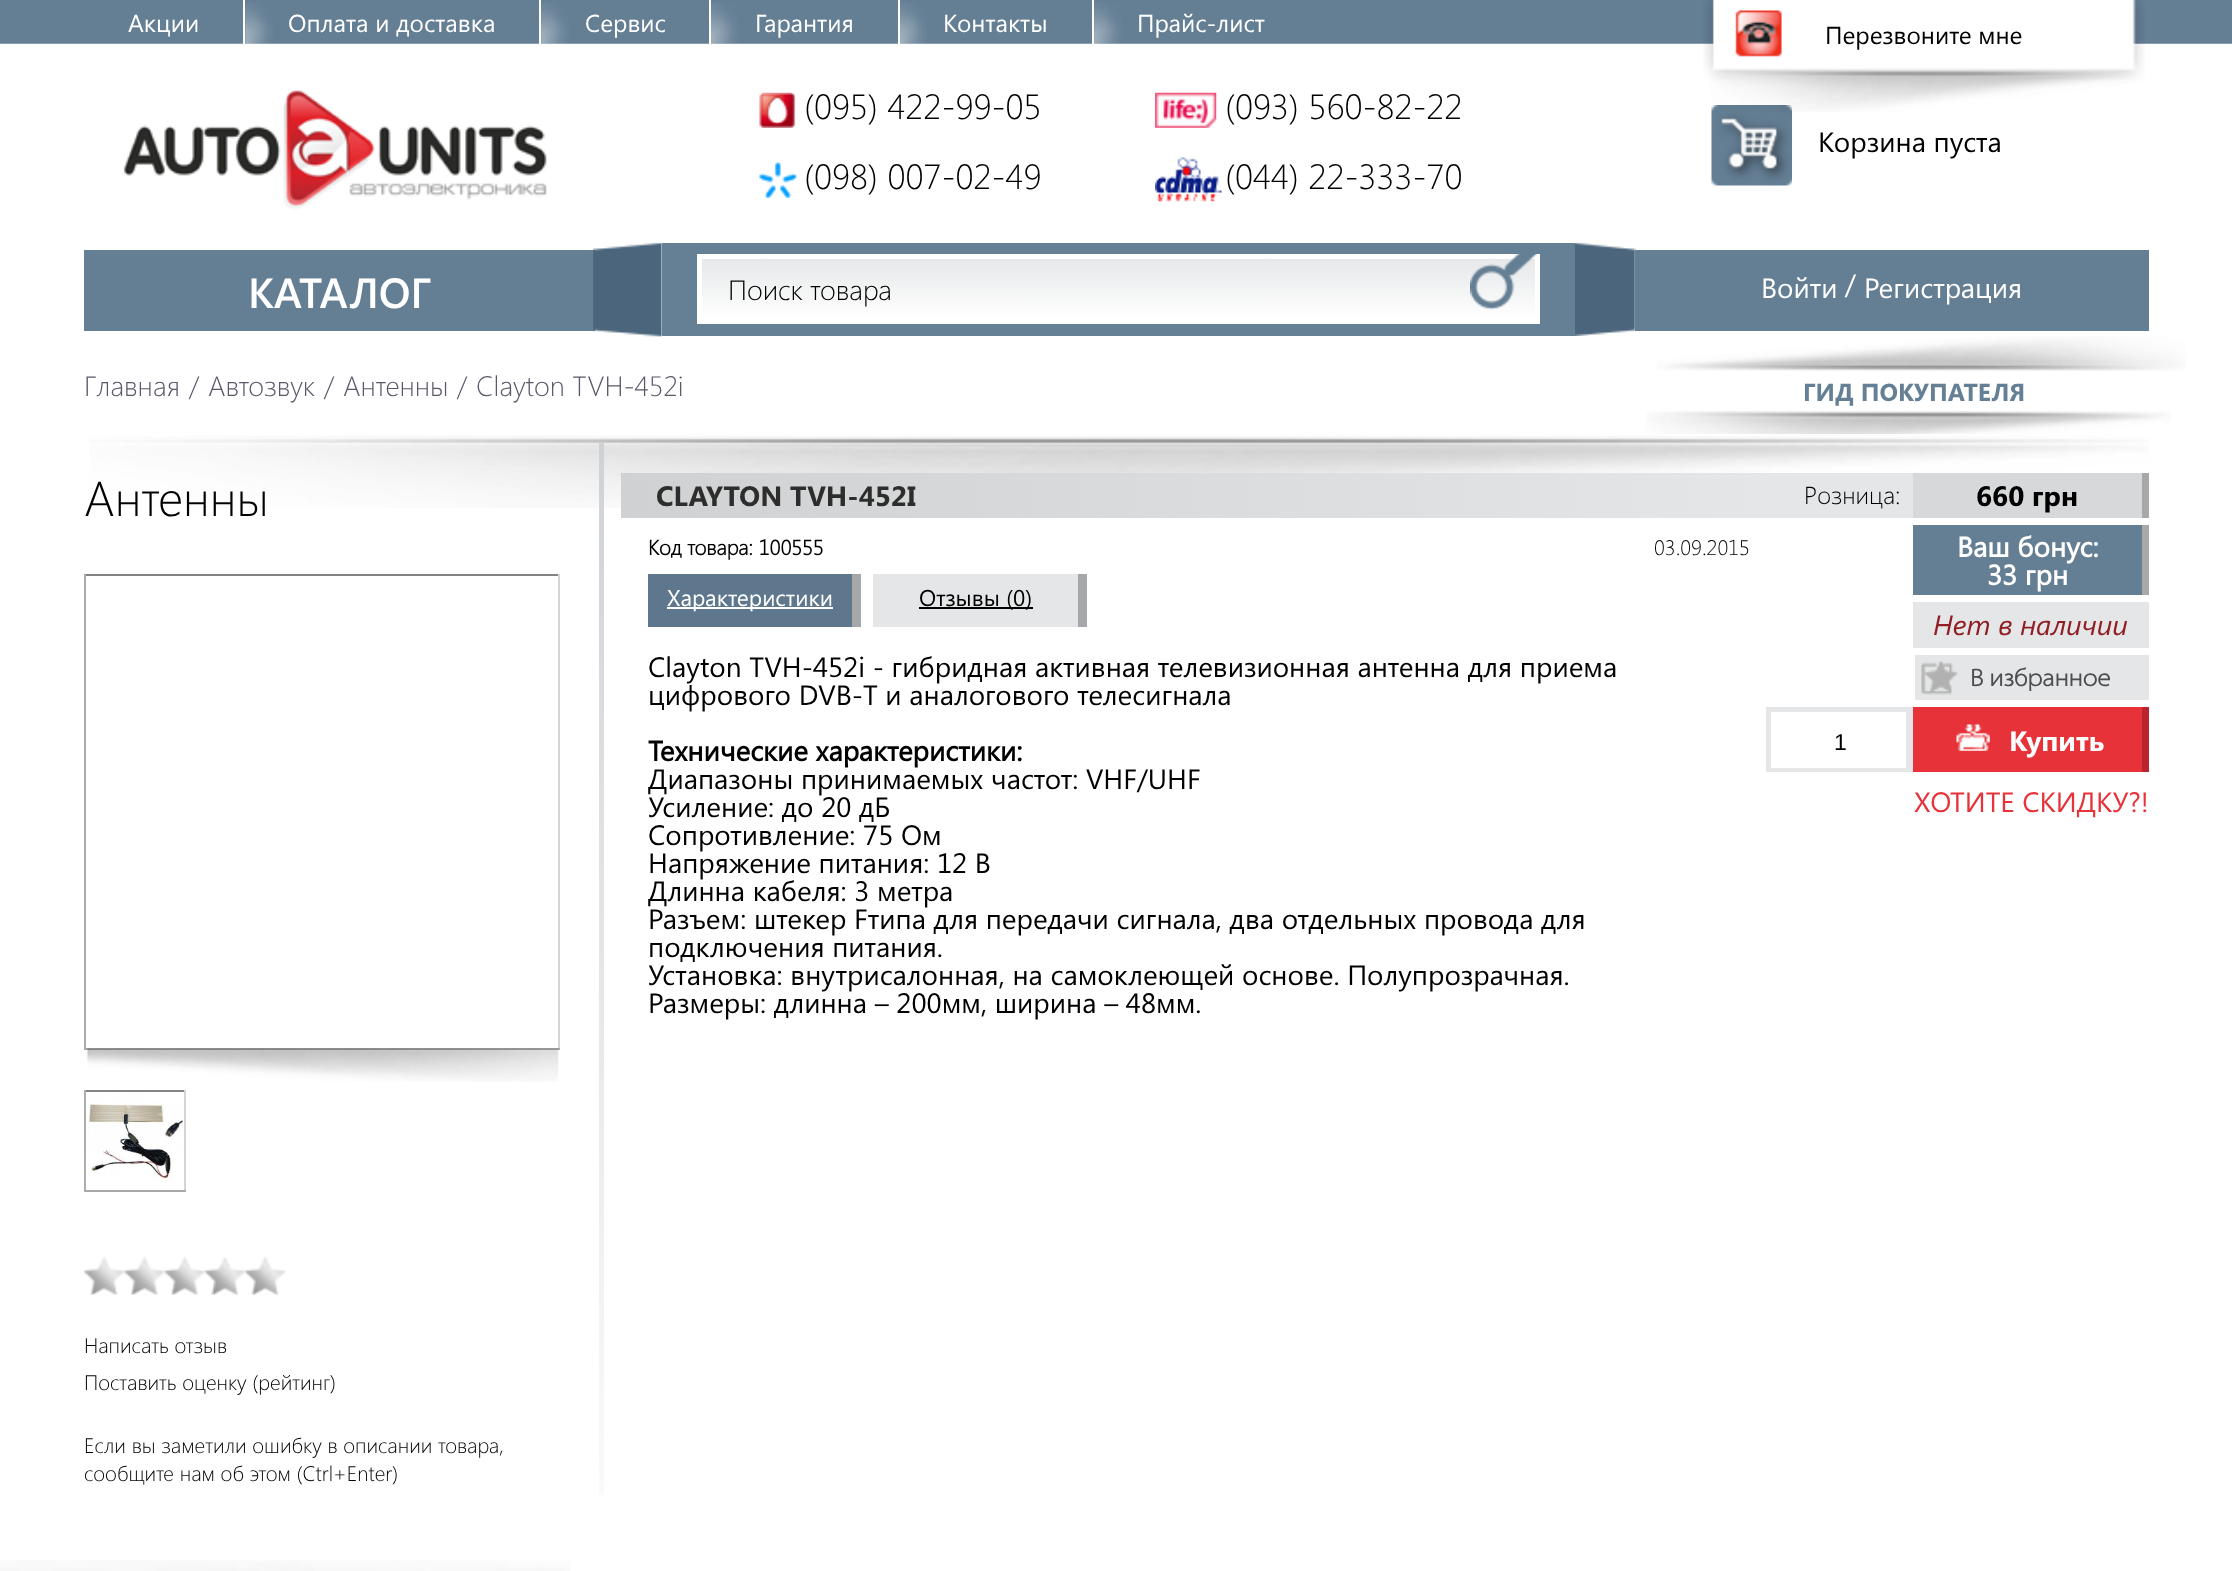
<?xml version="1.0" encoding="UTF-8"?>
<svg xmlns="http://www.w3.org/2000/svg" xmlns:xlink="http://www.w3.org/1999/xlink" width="2232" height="1571">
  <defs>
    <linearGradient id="g1" gradientUnits="userSpaceOnUse" x1="1118" y1="259" x2="1118" y2="319"><stop offset="0" stop-color="#e6e8e9" /><stop offset="1" stop-color="#ffffff" /></linearGradient>
    <linearGradient id="g2" gradientUnits="userSpaceOnUse" x1="601" y1="443" x2="601" y2="1495"><stop offset="0" stop-color="#cfd2d5" /><stop offset="1" stop-color="#fafafb" /></linearGradient>
    <linearGradient id="g3" gradientUnits="userSpaceOnUse" x1="621" y1="495" x2="1768" y2="495"><stop offset="0" stop-color="#d0d1d2" /><stop offset="1" stop-color="#e5e6e7" /></linearGradient>
  </defs>
  <rect width="100%" height="100%" fill="#ffffff" />
  <rect width="2232" height="44" fill="#647e94" />
  <rect x="243" width="2" height="44" fill="#ffffff" />
  <rect x="539" width="2" height="44" fill="#ffffff" />
  <image x="245" y="2" width="28" height="42" xlink:href="image1.png" />
  <rect x="709" width="2" height="44" fill="#ffffff" />
  <image x="541" y="2" width="28" height="42" xlink:href="image2.png" />
  <rect x="898" width="2" height="44" fill="#ffffff" />
  <image x="711" y="2" width="27" height="42" xlink:href="image3.png" />
  <rect x="1092" width="2" height="44" fill="#ffffff" />
  <image x="900" y="2" width="27" height="42" xlink:href="image3.png" />
  <image x="1094" y="2" width="28" height="42" xlink:href="image2.png" />
  <image x="0" y="43" width="2232" height="1" xlink:href="image4.png" />
  <image x="1711" y="105" width="81" height="81" xlink:href="image11.png" />
  <image x="1703" y="0" width="442" height="112" xlink:href="image5.png" />
  <image x="123" y="90" width="424" height="120" xlink:href="image6.png" />
  <image x="759" y="92" width="37" height="36" xlink:href="image7.png" />
  <image x="759" y="162" width="38" height="36" xlink:href="image8.png" />
  <image x="1155" y="92" width="62" height="36" xlink:href="image9.png" />
  <image x="1155" y="157" width="67" height="45" xlink:href="image10.png" />
  <rect x="84" y="250" width="511" height="81" fill="#647e94" />
  <rect x="662" y="243" width="913" height="93" fill="#657f95" />
  <image x="593" y="242" width="69" height="95" xlink:href="image12.png" />
  <rect x="702" y="259" width="833" height="60" fill="url(#g1)" />
  <rect x="699.5" y="256.5" width="838" height="65" fill="none" stroke="#ffffff" stroke-width="5" />
  <image x="1470" y="254" width="68" height="56" xlink:href="image13.png" />
  <image x="1575" y="242" width="62" height="94" xlink:href="image14.png" />
  <rect x="1635" y="250" width="514" height="81" fill="#647e94" />
  <image x="1657" y="336" width="529" height="35" xlink:href="image15.png" />
  <image x="1646" y="411" width="525" height="23" xlink:href="image16.png" />
  <image x="89" y="435" width="2060" height="73" xlink:href="image17.png" />
  <rect x="599" y="443" width="5" height="1052" fill="url(#g2)" />
  <rect x="84" y="574" width="476" height="2" fill="#848483" />
  <rect x="558" y="574" width="2" height="476" fill="#d5d5d4" />
  <rect x="84" y="1048" width="476" height="2" fill="#a8a8a7" />
  <rect x="84" y="574" width="2" height="476" fill="#ababaa" />
  <image x="86" y="1048" width="473" height="34" xlink:href="image18.png" />
  <rect x="84" y="1090" width="102" height="2" fill="#848483" />
  <rect x="184" y="1090" width="2" height="102" fill="#d5d5d4" />
  <rect x="84" y="1190" width="102" height="2" fill="#a8a8a7" />
  <rect x="84" y="1090" width="2" height="102" fill="#ababaa" />
  <image x="85" y="1092" width="98" height="98" xlink:href="image19.png" />
  <image x="84" y="1256" width="202" height="39" xlink:href="image20.png" />
  <rect x="621" y="473" width="1147" height="45" fill="url(#g3)" />
  <rect x="648" y="574" width="204" height="53" fill="#5e778c" />
  <rect x="852" y="574" width="9" height="53" fill="#a5a7aa" />
  <rect x="667" y="607" width="166" height="2" fill="#ffffff" />
  <rect x="873" y="574" width="205" height="53" fill="#e5e6e7" />
  <rect x="1078" y="574" width="9" height="53" fill="#a5a7aa" />
  <rect x="919" y="607" width="114" height="2" fill="#000000" />
  <rect x="1768" y="473" width="145" height="45" fill="#e5e6e7" />
  <rect x="1913" y="473" width="229" height="45" fill="#d7d8da" />
  <rect x="2142" y="473" width="7" height="45" fill="#a6a8aa" />
  <rect x="1913" y="525" width="229" height="70" fill="#647e94" />
  <rect x="2142" y="525" width="7" height="70" fill="#a6a8aa" />
  <rect x="1913" y="602" width="236" height="46" fill="#e5e6e7" />
  <rect x="1915" y="655" width="234" height="45" fill="#e5e6e7" />
  <image x="1921" y="661" width="37" height="34" xlink:href="image21.png" />
  <rect x="1766" y="707" width="147" height="65" fill="#e5e6e7" />
  <rect x="1771" y="712" width="135" height="56" fill="#ffffff" />
  <rect x="1913" y="707" width="229" height="65" fill="#e73239" />
  <image x="1956" y="724" width="34" height="27" xlink:href="image22.png" />
  <rect x="2142" y="707" width="7" height="65" fill="#bd232e" />
  <image x="0" y="1560" width="571" height="11" xlink:href="image23.png" />
  <text x="128" y="32" style="font-family: Segoe UI; font-size: 24.5px; fill: #ffffff">Акции</text>
  <text x="288" y="32" style="font-family: Segoe UI; font-size: 24.5px; fill: #ffffff">Оплата и доставка</text>
  <text x="585" y="32" style="font-family: Segoe UI; font-size: 24.5px; fill: #ffffff">Сервис</text>
  <text x="755" y="32" style="font-family: Segoe UI; font-size: 24.5px; fill: #ffffff">Гарантия</text>
  <text x="943" y="32" style="font-family: Segoe UI; font-size: 24.5px; fill: #ffffff">Контакты</text>
  <text x="1137" y="32" style="font-family: Segoe UI; font-size: 24.5px; fill: #ffffff">Прайс-лист</text>
  <text x="1825" y="44" style="font-family: Segoe UI; font-size: 24.5px; fill: #000000">Перезвоните мне</text>
  <text x="804" y="119" style="font-family: Segoe UI; font-size: 35px; font-weight: 300; fill: #000000">(095) 422-99-05</text>
  <text x="804" y="189" style="font-family: Segoe UI; font-size: 35px; font-weight: 300; fill: #000000">(098) 007-02-49</text>
  <text x="1225" y="119" style="font-family: Segoe UI; font-size: 35px; font-weight: 300; fill: #000000">(093) 560-82-22</text>
  <text x="1225" y="189" style="font-family: Segoe UI; font-size: 35px; font-weight: 300; fill: #000000">(044) 22-333-70</text>
  <text x="1818" y="152" style="font-family: Segoe UI; font-size: 28px; fill: #000000">Корзина пуста</text>
  <text x="248" y="308" style="font-family: Segoe UI; font-size: 42px; font-weight: 600; fill: #ffffff">КАТАЛОГ</text>
  <text x="728" y="300" style="font-family: Segoe UI; font-size: 28px; font-weight: 300; fill: #000000">Поиск товара</text>
  <text x="1761" y="298" style="font-family: Segoe UI; font-size: 28px; fill: #ffffff">Войти</text>
  <text x="1845" y="294" style="font-family: Segoe UI; font-size: 28px; fill: #ffffff">/</text>
  <text x="1864" y="298" style="font-family: Segoe UI; font-size: 28px; fill: #ffffff">Регистрация</text>
  <text x="84" y="396" style="font-family: Segoe UI; font-size: 28px; font-weight: 300; fill: #595969">Главная</text>
  <text x="189" y="396" style="font-family: Segoe UI; font-size: 28px; font-weight: 300; fill: #595969">/</text>
  <text x="208" y="396" style="font-family: Segoe UI; font-size: 28px; font-weight: 300; fill: #595969">Автозвук</text>
  <text x="324" y="396" style="font-family: Segoe UI; font-size: 28px; font-weight: 300; fill: #595969">/</text>
  <text x="343" y="396" style="font-family: Segoe UI; font-size: 28px; font-weight: 300; fill: #595969">Антенны</text>
  <text x="457" y="396" style="font-family: Segoe UI; font-size: 28px; font-weight: 300; fill: #595969">/</text>
  <text x="476" y="396" style="font-family: Segoe UI; font-size: 28px; font-weight: 300; fill: #595969">Clayton TVH-452i</text>
  <text x="1803" y="401" style="font-family: 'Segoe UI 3'; font-size: 24.5px; font-weight: bold; fill: #657f94">ГИД ПОКУПАТЕЛЯ</text>
  <text x="84" y="516" style="font-family: Segoe UI; font-size: 49px; font-weight: 300; fill: #000000">Антенны</text>
  <text x="84" y="1353" style="font-family: Segoe UI; font-size: 21px; font-weight: 300; fill: #000000">Написать отзыв</text>
  <text x="84" y="1390" style="font-family: Segoe UI; font-size: 21px; font-weight: 300; fill: #000000">Поставить оценку (рейтинг)</text>
  <text x="84" y="1453" style="font-family: Segoe UI; font-size: 21px; font-weight: 300; fill: #000000">Если вы заметили ошибку в описании товара,</text>
  <text x="84" y="1481" style="font-family: Segoe UI; font-size: 21px; font-weight: 300; fill: #000000">сообщите нам об этом (Ctrl+Enter)</text>
  <text x="656" y="506" style="font-family: 'Segoe UI 3'; font-size: 28px; font-weight: bold; fill: #2d2d2d">CLAYTON TVH-452I</text>
  <text x="648" y="555" style="font-family: Segoe UI; font-size: 21px; font-weight: bold; fill: #000000">Код товара: 100555</text>
  <text x="1654" y="555" style="font-family: Segoe UI; font-size: 21px; font-weight: 300; fill: #000000">03.09.2015</text>
  <text x="667" y="606" style="font-family: Segoe UI; font-size: 22.75px; fill: #ffffff">Характеристики</text>
  <text x="919" y="606" style="font-family: Segoe UI; font-size: 22.75px; fill: #000000">Отзывы (0)</text>
  <text x="648" y="677" style="font-family: Segoe UI; font-size: 28px; fill: #000000">Clayton TVH-452i - гибридная активная телевизионная антенна для приема</text>
  <text x="648" y="705" style="font-family: Segoe UI; font-size: 28px; fill: #000000">цифрового DVB-T и аналогового телесигнала</text>
  <text x="648" y="761" style="font-family: 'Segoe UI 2'; font-size: 28px; font-weight: bold; fill: #000000">Технические характеристики:</text>
  <text x="648" y="789" style="font-family: Segoe UI; font-size: 28px; fill: #000000">Диапазоны принимаемых частот: VHF/UHF</text>
  <text x="648" y="817" style="font-family: Segoe UI; font-size: 28px; fill: #000000">Усиление: до 20 дБ</text>
  <text x="648" y="845" style="font-family: Segoe UI; font-size: 28px; fill: #000000">Сопротивление: 75 Ом</text>
  <text x="648" y="873" style="font-family: Segoe UI; font-size: 28px; fill: #000000">Напряжение питания: 12 В</text>
  <text x="648" y="901" style="font-family: Segoe UI; font-size: 28px; fill: #000000">Длинна кабеля: 3 метра</text>
  <text x="648" y="929" style="font-family: Segoe UI; font-size: 28px; fill: #000000">Разъем: штекер Fтипа для передачи сигнала, два отдельных провода для</text>
  <text x="648" y="957" style="font-family: Segoe UI; font-size: 28px; fill: #000000">подключения питания.</text>
  <text x="648" y="985" style="font-family: Segoe UI; font-size: 28px; fill: #000000">Установка: внутрисалонная, на самоклеющей основе. Полупрозрачная.</text>
  <text x="648" y="1013" style="font-family: Segoe UI; font-size: 28px; fill: #000000">Размеры: длинна – 200мм, ширина – 48мм.</text>
  <text x="1804" y="504" style="font-family: Segoe UI; font-size: 24.5px; font-weight: 300; fill: #000000">Розница:</text>
  <text x="1976" y="506" style="font-family: 'Segoe UI 3'; font-size: 28px; font-weight: bold; fill: #000000">660 грн</text>
  <text x="1957" y="557" style="font-family: 'Segoe UI 2'; font-size: 28px; font-weight: bold; fill: #ffffff">Ваш бонус:</text>
  <text x="1987" y="585" style="font-family: 'Segoe UI 2'; font-size: 28px; font-weight: bold; fill: #ffffff">33 грн</text>
  <text x="1933" y="635" style="font-family: Segoe UI; font-size: 28px; font-style: italic; fill: #901e24">Нет в наличии</text>
  <text x="1970" y="686" style="font-family: Myriad; font-size: 24.5px; font-weight: bold; fill: #4c4d4e">В избранное</text>
  <text x="1834" y="750" style="font-family: Liberation Sans; font-size: 23px; fill: #000000">1</text>
  <text x="2009" y="751" style="font-family: 'Segoe UI 3'; font-size: 28px; font-weight: bold; fill: #ffffff">Купить</text>
  <text x="1914" y="812" style="font-family: Segoe UI; font-size: 28px; fill: #e73239">ХОТИТЕ СКИДКУ?!</text>
</svg>
